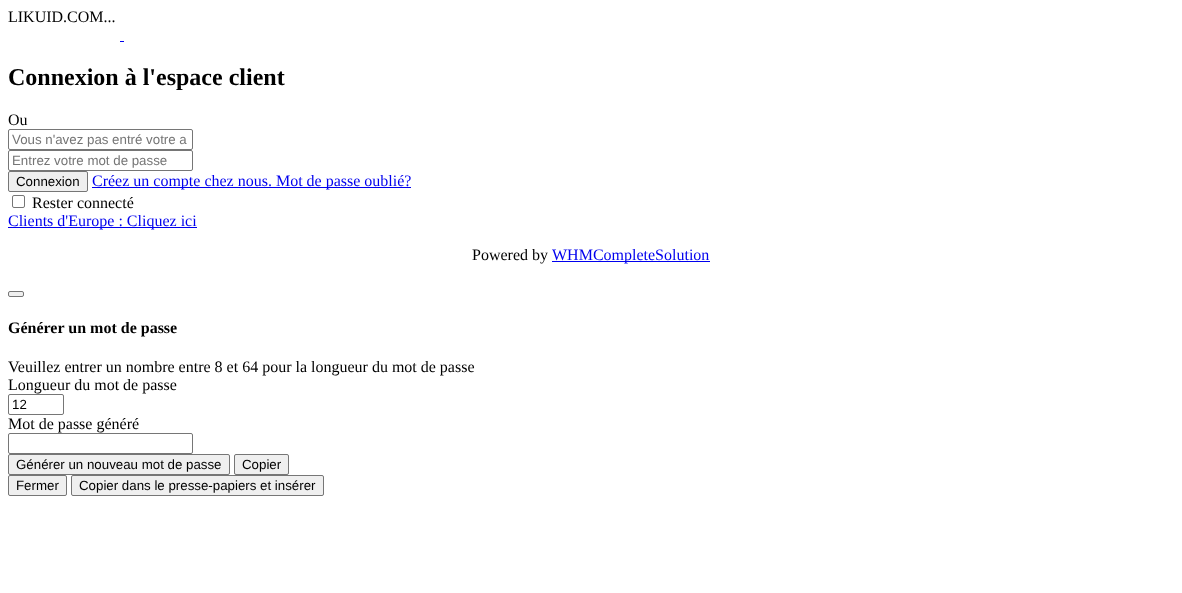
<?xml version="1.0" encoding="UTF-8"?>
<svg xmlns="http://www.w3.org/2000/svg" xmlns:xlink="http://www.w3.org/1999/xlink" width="1182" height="593">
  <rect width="100%" height="100%" fill="#ffffff" />
  <rect x="120" y="41" width="4" height="1" fill="#0000ee" />
  <rect x="8.5" y="129.5" width="184" height="20" rx="1.5" fill="none" stroke="#767676" />
  <rect x="8.5" y="150.5" width="184" height="20" rx="1.5" fill="none" stroke="#767676" />
  <rect x="8.5" y="171.5" width="79" height="20" rx="1.5" fill="#efefef" stroke="#767676" />
  <rect x="92" y="187" width="319" height="1" fill="#0000ee" />
  <rect x="12.5" y="195.5" width="12" height="12" rx="1.5" fill="none" stroke="#767676" />
  <rect x="8" y="227" width="189" height="1" fill="#0000ee" />
  <rect x="552" y="261" width="158" height="1" fill="#0000ee" />
  <rect x="8.5" y="291.5" width="15" height="5" rx="1.5" fill="#efefef" stroke="#767676" />
  <rect x="8.5" y="394.5" width="55" height="20" rx="1.5" fill="none" stroke="#767676" />
  <rect x="8.5" y="433.5" width="184" height="20" rx="1.5" fill="none" stroke="#767676" />
  <rect x="8.5" y="454.5" width="221" height="20" rx="1.5" fill="#efefef" stroke="#767676" />
  <rect x="234.5" y="454.5" width="54" height="20" rx="1.5" fill="#efefef" stroke="#767676" />
  <rect x="8.5" y="475.5" width="58" height="20" rx="1.5" fill="#efefef" stroke="#767676" />
  <rect x="71.5" y="475.5" width="252" height="20" rx="1.5" fill="#efefef" stroke="#767676" />
  <text x="8" y="22" style="font-family: Liberation Serif; font-size: 16px; fill: #000000">LIKUID.COM...</text>
  <text x="8" y="85" style="font-family: Liberation Serif; font-size: 24px; font-weight: bold; fill: #000000">Connexion à l'espace client</text>
  <text x="8" y="125" style="font-family: Liberation Serif; font-size: 16px; fill: #000000">Ou</text>
  <text x="12" y="144" style="font-family: Liberation Sans; font-size: 13.3px; fill: #757575">Vous n'avez pas entré votre a</text>
  <text x="12" y="165" style="font-family: Liberation Sans; font-size: 13.3px; fill: #757575">Entrez votre mot de passe</text>
  <text x="16" y="186" style="font-family: Liberation Sans; font-size: 13.3px; fill: #000000">Connexion</text>
  <text x="92" y="186" style="font-family: Liberation Serif; font-size: 16px; fill: #0000ee">Créez un compte chez nous. Mot de passe oublié?</text>
  <text x="32" y="208" style="font-family: Liberation Serif; font-size: 16px; fill: #000000">Rester connecté</text>
  <text x="8" y="226" style="font-family: Liberation Serif; font-size: 16px; fill: #0000ee">Clients d'Europe : Cliquez ici</text>
  <text x="472" y="260" style="font-family: Liberation Serif; font-size: 16px; fill: #000000">Powered by</text>
  <text x="552" y="260" style="font-family: Liberation Serif; font-size: 16px; fill: #0000ee">WHMCompleteSolution</text>
  <text x="8" y="333" style="font-family: Liberation Serif; font-size: 16px; font-weight: bold; fill: #000000">Générer un mot de passe</text>
  <text x="8" y="372" style="font-family: Liberation Serif; font-size: 16px; fill: #000000">Veuillez entrer un nombre entre 8 et 64 pour la longueur du mot de passe</text>
  <text x="8" y="390" style="font-family: Liberation Serif; font-size: 16px; fill: #000000">Longueur du mot de passe</text>
  <text x="12" y="409" style="font-family: Liberation Sans; font-size: 13.3px; fill: #000000">12</text>
  <text x="8" y="429" style="font-family: Liberation Serif; font-size: 16px; fill: #000000">Mot de passe généré</text>
  <text x="16" y="469" style="font-family: Liberation Sans; font-size: 13.3px; fill: #000000">Générer un nouveau mot de passe</text>
  <text x="242" y="469" style="font-family: Liberation Sans; font-size: 13.3px; fill: #000000">Copier</text>
  <text x="16" y="490" style="font-family: Liberation Sans; font-size: 13.3px; fill: #000000">Fermer</text>
  <text x="79" y="490" style="font-family: Liberation Sans; font-size: 13.3px; fill: #000000">Copier dans le presse-papiers et insérer</text>
</svg>
